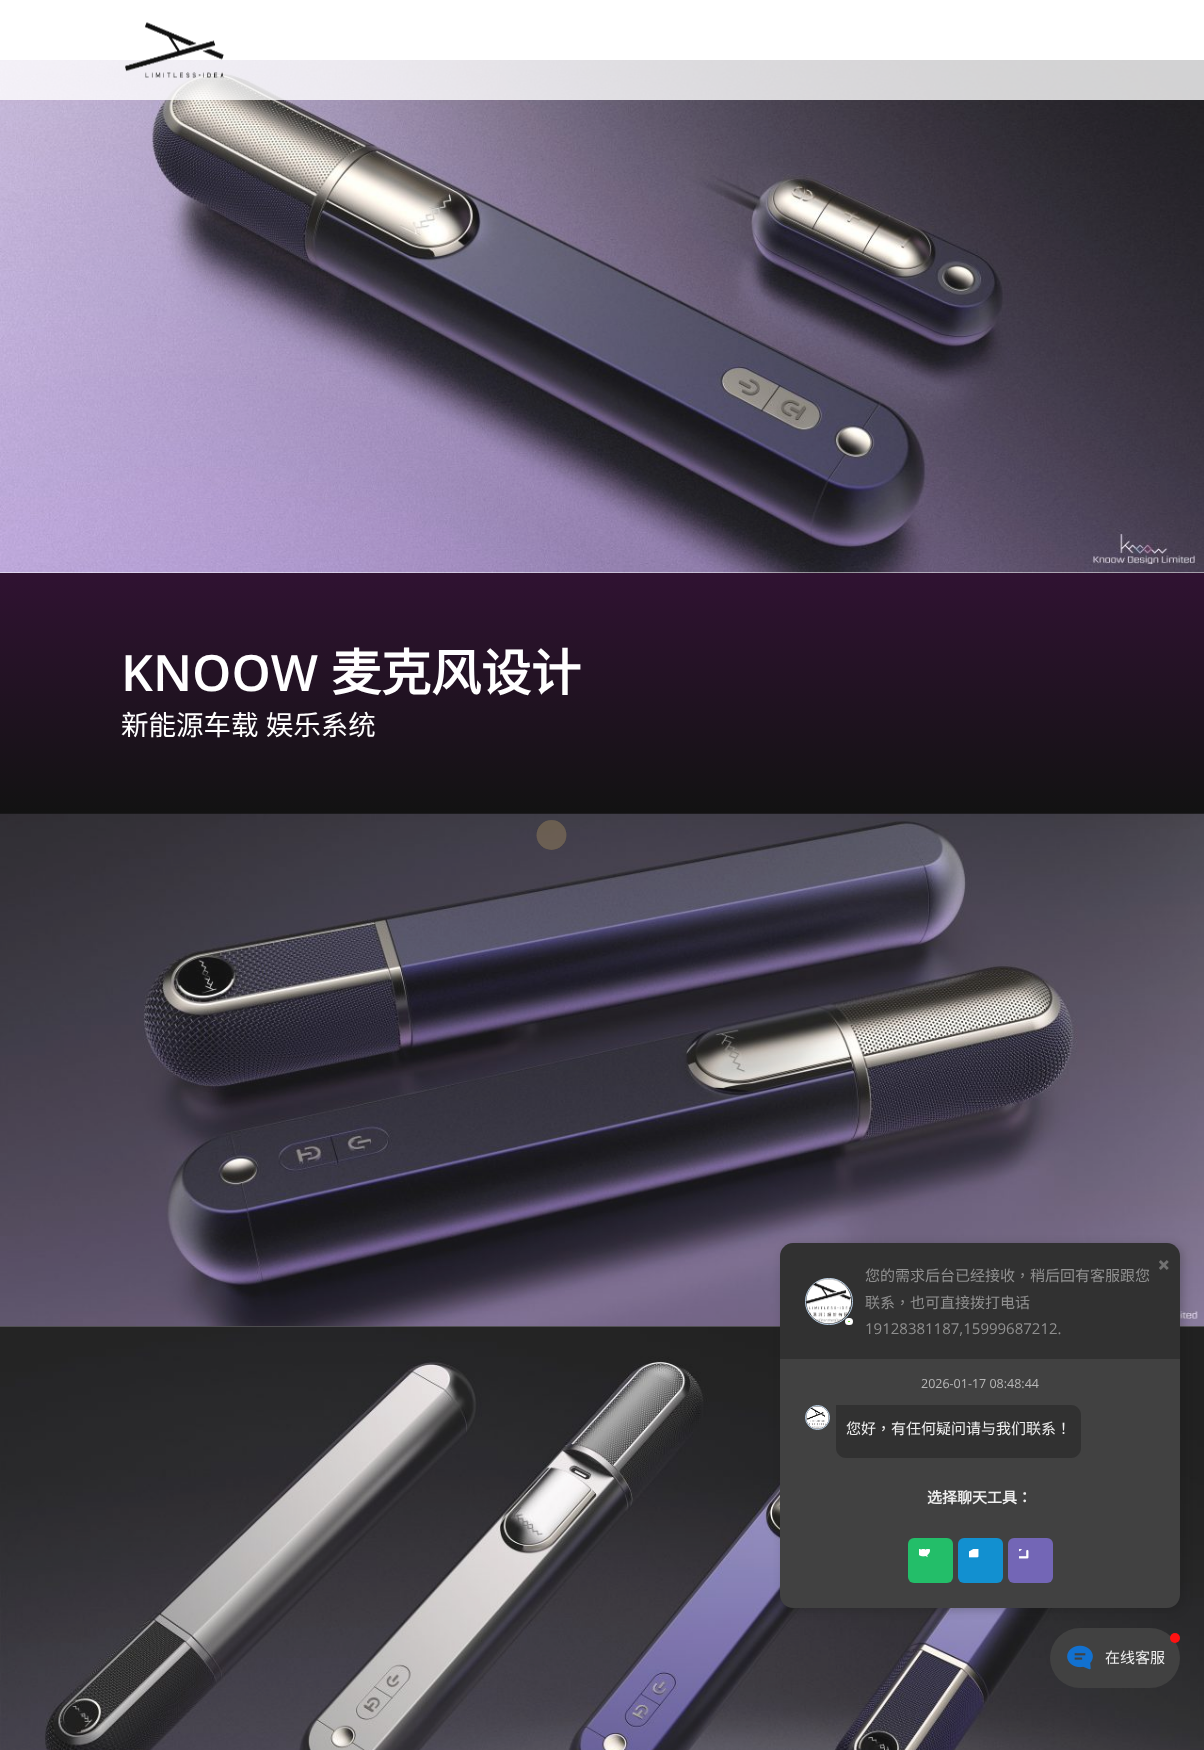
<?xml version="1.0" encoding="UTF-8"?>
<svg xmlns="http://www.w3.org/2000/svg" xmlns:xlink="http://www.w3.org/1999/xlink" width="1204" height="1750">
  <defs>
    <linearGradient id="g1" gradientUnits="userSpaceOnUse" x1="603" y1="572" x2="603" y2="814"><stop offset="0" stop-color="#301232" /><stop offset="1" stop-color="#121212" /></linearGradient>
  </defs>
  <rect width="100%" height="100%" fill="#ffffff" />
  <image x="0" y="60" width="1204" height="513" xlink:href="image2.png" />
  <rect y="60" width="1204" height="40" fill="#ffffff" fill-opacity="0.8" />
  <image x="125" y="22" width="99" height="56" xlink:href="image1.png" />
  <rect y="573" width="1204" height="241" fill="url(#g1)" />
  <image x="0" y="813" width="1204" height="514" xlink:href="image3.png" />
  <image x="0" y="1326" width="1204" height="424" xlink:href="image4.png" />
  <rect x="783" y="1245" width="400" height="365" rx="13" fill="#121212" fill-opacity="0.25" filter="blur(5px)" />
  <path d="M 793 1243 h 374 c 7 0 13 6 13 13 v 103 h -400 v -103 c 0 -7 6 -13 13 -13 z" fill="#313131" />
  <image x="1159" y="1260" width="10" height="10" xlink:href="image5.png" />
  <rect x="805.5" y="1278.5" width="47" height="46" rx="23" fill="none" stroke="#bdd4eb" />
  <image x="806" y="1278" width="46" height="47" xlink:href="image6.png" />
  <rect x="846.5" y="1319.5" width="5" height="4" rx="2" fill="#57d816" stroke="#ffffff" stroke-width="3" />
  <path d="M 780 1359 h 400 v 236 c 0 7 -6 13 -13 13 h -374 c -7 0 -13 -6 -13 -13 z" fill="#414141" />
  <circle cx="817.5" cy="1417.5" r="12" fill="none" stroke="#bdd4eb" />
  <image x="806" y="1406" width="23" height="23" xlink:href="image7.png" />
  <path d="M 836 1405 h 235 c 5.5 0 10 4.5 10 10 v 33 c 0 5.5 -4.5 10 -10 10 h -225 c -5.5 0 -10 -4.5 -10 -10 z" fill="#313131" />
  <rect x="908" y="1538" width="45" height="45" rx="6" fill="#23be69" />
  <image x="919" y="1549" width="11" height="9" xlink:href="image8.png" />
  <rect x="958" y="1538" width="45" height="45" rx="6" fill="#1290d0" />
  <image x="969" y="1549" width="10" height="9" xlink:href="image9.png" />
  <rect x="1008" y="1538" width="45" height="45" rx="6" fill="#7366b6" />
  <image x="1019" y="1549" width="10" height="10" xlink:href="image10.png" />
  <rect x="1050" y="1628" width="130" height="60" rx="30" fill="#414141" />
  <circle cx="1175" cy="1638" r="5" fill="#ff1212" />
  <image x="1067" y="1645" width="26" height="25" xlink:href="image11.png" />
  <circle cx="551.5" cy="835" r="15" fill="#7d934d" fill-opacity="0.09" />
  <circle cx="551.5" cy="835" r="15" fill="#abbd81" fill-opacity="0.09" />
  <circle cx="551.5" cy="835" r="15" fill="#f8b26a" fill-opacity="0.09" />
  <circle cx="551.5" cy="835" r="15" fill="#f47e60" fill-opacity="0.09" />
  <circle cx="551.5" cy="835" r="15" fill="#7d934d" fill-opacity="0.09" />
  <text x="121" y="691" style="font-family: Open Sans; font-size: 50px; font-weight: 600; fill: #ffffff">KNOOW</text>
  <text x="331" y="691" style="font-family: Noto Sans CJK HK; font-size: 50px; font-weight: bold; fill: #ffffff">麦克风设计</text>
  <text x="121" y="735" word-spacing="1" style="font-family: Noto Sans CJK HK; font-size: 27.5px; fill: #ffffff">新能源车载 娱乐系统</text>
  <text x="865" y="1281" style="font-family: Noto Sans CJK HK; font-size: 15px; fill: #909090">您的需求后台已经接收，稍后回有客服跟您</text>
  <text x="865" y="1308" style="font-family: Noto Sans CJK HK; font-size: 15px; fill: #909090">联系，也可直接拨打电话</text>
  <text x="865" y="1334" style="font-family: Open Sans; font-size: 15px; fill: #909090">19128381187,15999687212.</text>
  <text x="921" y="1388" style="font-family: Open Sans; font-size: 12.5px; fill: #b8b8b8">2026-01-17 08:48:44</text>
  <text x="846" y="1434" style="font-family: Noto Sans CJK HK; font-size: 15px; fill: #efefef">您好，有任何疑问请与我们联系！</text>
  <text x="927" y="1503" style="font-family: Noto Sans CJK HK; font-size: 15px; font-weight: bold; fill: #efefef">选择聊天工具：</text>
  <text x="1105" y="1663" style="font-family: Noto Sans CJK HK; font-size: 15px; fill: #efefef">在线客服</text>
</svg>
